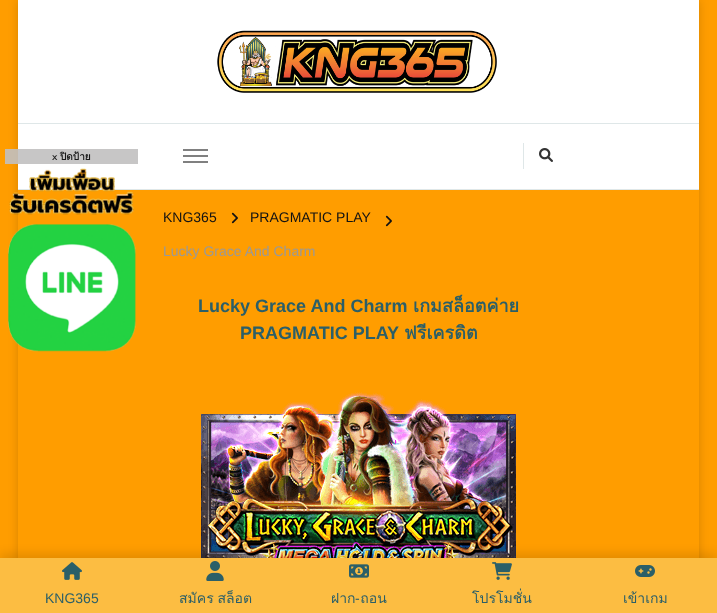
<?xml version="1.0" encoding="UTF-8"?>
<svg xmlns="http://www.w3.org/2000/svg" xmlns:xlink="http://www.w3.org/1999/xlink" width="717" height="613">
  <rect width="100%" height="100%" fill="#ff9d00" />
  <rect x="18" width="681" height="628" fill="#000000" fill-opacity="0.16" filter="blur(5px)" />
  <rect x="18" width="681" height="189" fill="#ffffff" />
  <image x="217" y="30" width="280" height="63" xlink:href="image1.png" />
  <rect x="18" y="123" width="681" height="1" fill="#dfe7e8" />
  <rect x="18" y="189" width="681" height="1" fill="#dfe7e8" />
  <rect x="183" y="149" width="25" height="2" fill="#808080" />
  <rect x="183" y="155" width="25" height="2" fill="#808080" />
  <rect x="183" y="161" width="25" height="2" fill="#808080" />
  <rect x="523" y="143" width="1" height="26" fill="#dfe7e8" />
  <image x="539" y="148" width="14" height="14" xlink:href="image2.png" />
  <rect x="5" y="149" width="133" height="15" fill="#c1c0c0" fill-opacity="0.9" />
  <rect x="18" y="190" width="681" height="368" fill="#ff9d00" />
  <image x="8" y="168" width="128" height="184" xlink:href="image3.png" />
  <image x="201" y="392" width="315" height="166" xlink:href="image4.png" />
  <rect y="553" width="717" height="55" fill="#000000" fill-opacity="0.1" filter="blur(5px)" />
  <rect y="558" width="717" height="55" fill="#fcbd42" />
  <image x="62" y="562" width="20" height="18" xlink:href="image5.png" />
  <image x="206" y="561" width="18" height="20" xlink:href="image6.png" />
  <image x="349" y="564" width="20" height="14" xlink:href="image7.png" />
  <image x="492" y="562" width="20" height="18" xlink:href="image8.png" />
  <image x="635" y="565" width="20" height="12" xlink:href="image9.png" />
  <image x="231" y="212" width="7" height="12" xlink:href="image10.png" />
  <image x="385" y="215" width="7" height="12" xlink:href="image10.png" />
  <text x="52" y="160" style="font-family: Nunito Sans; font-size: 10px; font-weight: 600; fill: #1a1a1a">x</text>
  <text x="60" y="160" style="font-family: Loma; font-size: 10px; font-weight: bold; fill: #1a1a1a">ปิดป้าย</text>
  <text x="198" y="312" style="font-family: Liberation Sans; font-size: 18px; font-weight: bold; fill: #2b5f68">Lucky Grace And Charm</text>
  <text x="413" y="312" style="font-family: Loma; font-size: 18px; font-weight: bold; fill: #2b5f68">เกมสล็อตค่าย</text>
  <text x="240" y="339" style="font-family: Liberation Sans; font-size: 18px; font-weight: bold; fill: #2b5f68">PRAGMATIC PLAY</text>
  <text x="404" y="339" style="font-family: Loma; font-size: 18px; font-weight: bold; fill: #2b5f68">ฟรีเครดิต</text>
  <text x="45" y="603" style="font-family: Liberation Sans; font-size: 14px; fill: #2b5f68">KNG365</text>
  <text x="179" y="603" word-spacing="-1" style="font-family: Loma; font-size: 14px; fill: #2b5f68">สมัคร สล็อต</text>
  <text x="331" y="603" style="font-family: Loma; font-size: 14px; fill: #2b5f68">ฝาก ถอน</text>
  <text x="355" y="603" style="font-family: Liberation Sans; font-size: 14px; fill: #2b5f68">-</text>
  <text x="472" y="603" style="font-family: Loma; font-size: 14px; fill: #2b5f68">โปรโมชั่น</text>
  <text x="623" y="603" style="font-family: Loma; font-size: 14px; fill: #2b5f68">เข้าเกม</text>
  <text x="163" y="222" style="font-family: Liberation Sans; font-size: 14px; fill: #121212">KNG365</text>
  <text x="250" y="222" style="font-family: Liberation Sans; font-size: 14px; fill: #121212">PRAGMATIC PLAY</text>
  <text x="163" y="256" style="font-family: Liberation Sans; font-size: 14px; fill: #999999">Lucky Grace And Charm</text>
</svg>
